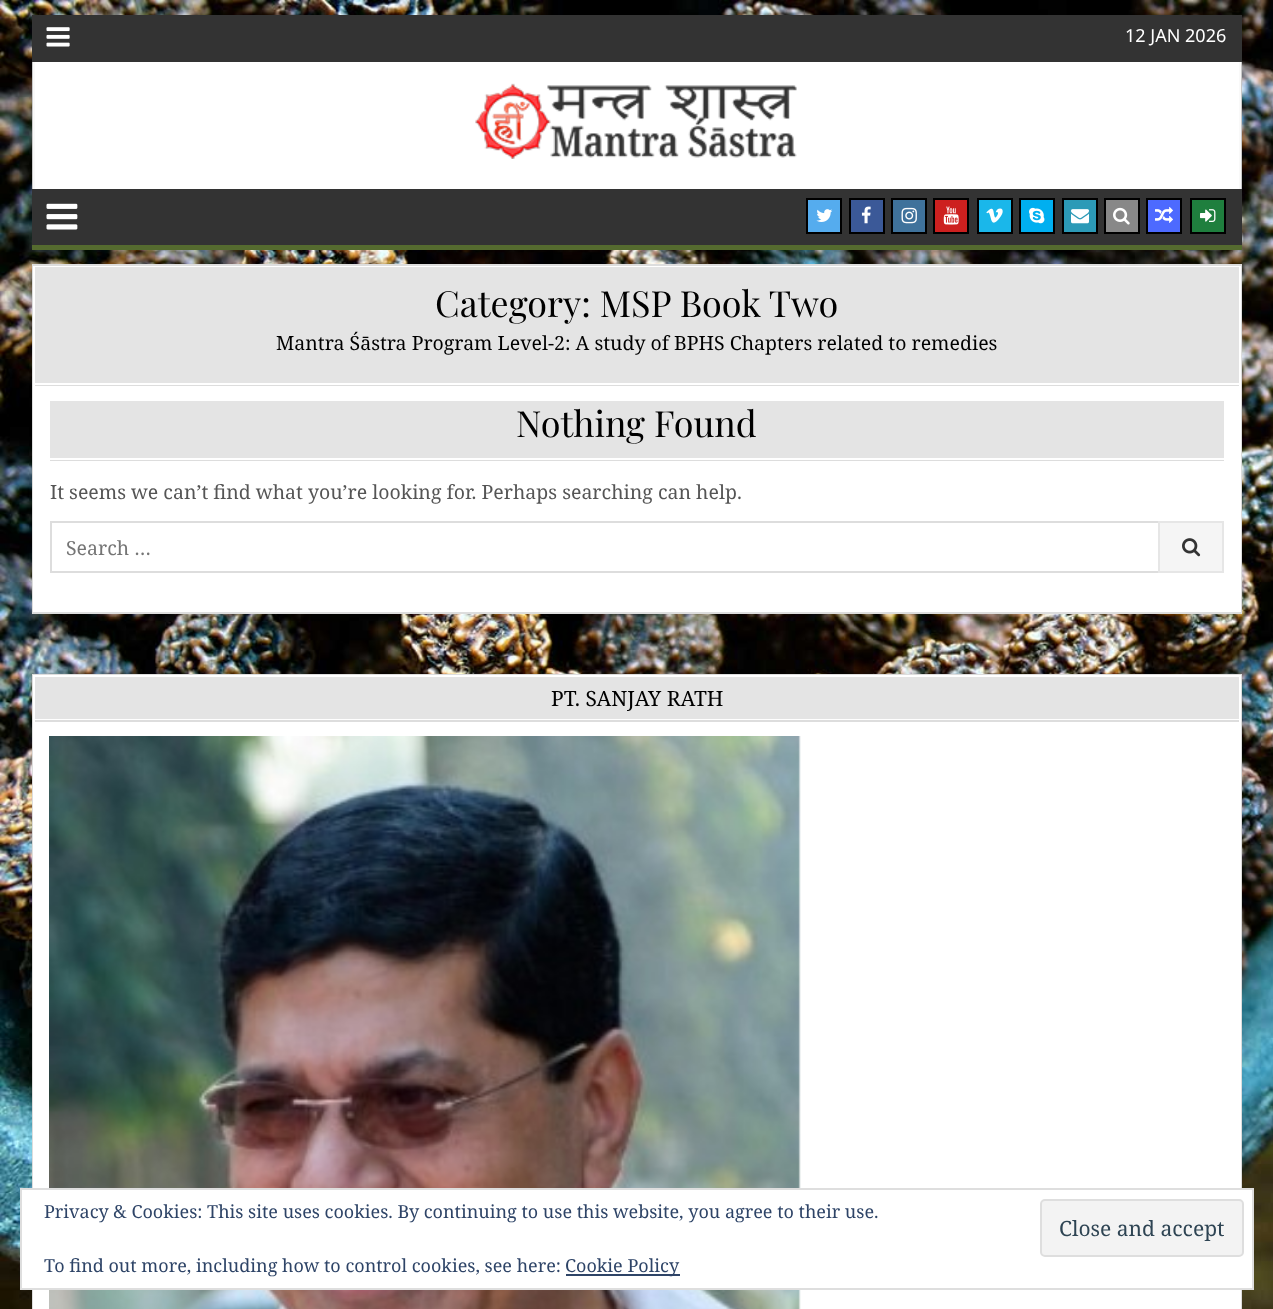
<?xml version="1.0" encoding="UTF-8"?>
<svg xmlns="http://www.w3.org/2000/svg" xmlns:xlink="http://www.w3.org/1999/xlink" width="1273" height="1309">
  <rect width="100%" height="100%" fill="#ffffff" />
  <image x="0" y="0" width="1273" height="1309" xlink:href="image1.png" />
  <rect x="32" y="15" width="1210" height="47" fill="#333333" />
  <image x="46" y="27" width="24" height="20" xlink:href="image2.png" />
  <rect x="35" y="62" width="1204" height="127" fill="#ffffff" />
  <rect x="1241" y="62" width="1" height="127" fill="#c8c8c8" />
  <rect x="32" y="62" width="1" height="127" fill="#c8c8c8" />
  <rect x="1239" y="62" width="2" height="127" fill="#f9f9f9" />
  <rect x="33" y="62" width="2" height="127" fill="#f9f9f9" />
  <image x="475" y="83" width="322" height="76" xlink:href="image3.png" />
  <rect x="32" y="189" width="1210" height="56" fill="#333333" />
  <rect x="32" y="245" width="1210" height="5" fill="#556b2f" />
  <image x="46" y="203" width="32" height="27" xlink:href="image4.png" />
  <rect x="807" y="199" width="34" height="34" fill="#55acee" stroke="#000000" stroke-width="2" />
  <image x="816" y="209" width="17" height="13" xlink:href="image5.png" />
  <rect x="850" y="199" width="34" height="34" fill="#3b5998" stroke="#000000" stroke-width="2" />
  <image x="861" y="206" width="10" height="18" xlink:href="image6.png" />
  <rect x="892" y="199" width="34" height="34" fill="#3f729b" stroke="#000000" stroke-width="2" />
  <image x="901" y="207" width="16" height="17" xlink:href="image7.png" />
  <rect x="934" y="199" width="34" height="34" fill="#cd201f" stroke="#000000" stroke-width="2" />
  <image x="943" y="206" width="16" height="19" xlink:href="image8.png" />
  <rect x="978" y="199" width="34" height="34" fill="#1ab7ea" stroke="#000000" stroke-width="2" />
  <image x="986" y="208" width="17" height="15" xlink:href="image9.png" />
  <rect x="1020" y="199" width="34" height="34" fill="#00aff0" stroke="#000000" stroke-width="2" />
  <image x="1029" y="207" width="16" height="17" xlink:href="image10.png" />
  <rect x="1063" y="199" width="34" height="34" fill="#2c9ab7" stroke="#000000" stroke-width="2" />
  <image x="1071" y="209" width="18" height="15" xlink:href="image11.png" />
  <rect x="1105" y="199" width="34" height="34" fill="#888888" stroke="#000000" stroke-width="2" />
  <image x="1113" y="207" width="17" height="18" xlink:href="image12.png" />
  <rect x="1147" y="199" width="34" height="34" fill="#4d6aff" stroke="#000000" stroke-width="2" />
  <image x="1155" y="206" width="18" height="17" xlink:href="image13.png" />
  <rect x="1191" y="199" width="34" height="34" fill="#1f7f3e" stroke="#000000" stroke-width="2" />
  <image x="1200" y="209" width="16" height="13" xlink:href="image14.png" />
  <rect x="35" y="386" width="1204" height="224" fill="#ffffff" />
  <rect x="33" y="265" width="1208" height="348" fill="none" stroke="#dddddd" stroke-width="2" />
  <rect x="34" y="267" width="1206" height="344" fill="none" stroke="#ffffff" stroke-width="2" />
  <rect x="35" y="267" width="1204" height="116" fill="#e4e4e4" />
  <rect x="35" y="385" width="1204" height="1" fill="#dddddd" />
  <rect x="35" y="383" width="1204" height="2" fill="#ffffff" />
  <rect x="50" y="401" width="1174" height="57" fill="#e4e4e4" />
  <rect x="50" y="460" width="1174" height="1" fill="#dddddd" />
  <rect x="51" y="522" width="1172" height="50" fill="none" stroke="#dddddd" stroke-width="2" />
  <rect x="1159" y="522" width="64" height="50" fill="#f5f5f5" stroke="#e6e6e6" stroke-width="2" />
  <image x="1182" y="538" width="19" height="19" xlink:href="image15.png" />
  <rect x="35" y="722" width="1204" height="587" fill="#ffffff" />
  <rect x="33" y="675" width="1208" height="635" fill="none" stroke="#dddddd" stroke-width="2" />
  <rect x="34" y="676" width="1206" height="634" fill="none" stroke="#ffffff" stroke-width="2" />
  <rect x="35" y="677" width="1204" height="42" fill="#e4e4e4" />
  <rect x="35" y="720" width="1204" height="2" fill="#dddddd" />
  <rect x="35" y="719" width="1204" height="1" fill="#ffffff" />
  <image x="49" y="736" width="752" height="573" xlink:href="image16.png" />
  <rect x="21" y="1189" width="1232" height="100" fill="#ffffff" stroke="#dedede" stroke-width="2" />
  <rect x="1041" y="1200" width="202" height="56" rx="4" fill="#f3f3f3" stroke="#dedede" stroke-width="2" />
  <rect x="566" y="1274" width="114" height="2" fill="#2e4467" />
  <text x="1125" y="42" style="font-family: Noto Sans; font-size: 18px; fill: #ffffff">12 JAN 2026</text>
  <text x="435" y="317" style="font-family: Playfair Display; font-size: 36px; fill: #000000">Category: MSP Book Two</text>
  <text x="276" y="350" style="font-family: Noto Serif; font-size: 19.5px; fill: #000000">Mantra Śāstra Program Level-2: A study of BPHS Chapters related to remedies</text>
  <text x="516" y="437" style="font-family: Playfair Display; font-size: 36px; fill: #000000">Nothing Found</text>
  <text x="50" y="499" style="font-family: Noto Serif; font-size: 19.5px; fill: #555555">It seems we can’t find what you’re looking for. Perhaps searching can help.</text>
  <text x="66" y="555" style="font-family: Noto Serif; font-size: 19.5px; fill: #757575">Search …</text>
  <text x="551" y="706" style="font-family: Noto Serif; font-size: 21px; fill: #000000">PT. SANJAY RATH</text>
  <text x="44" y="1218" style="font-family: Noto Serif; font-size: 18px; fill: #2e4467">Privacy &amp; Cookies: This site uses cookies. By continuing to use this website, you agree to their use.</text>
  <text x="1059" y="1236" style="font-family: Noto Serif; font-size: 21px; fill: #2e4453">Close and accept</text>
  <text x="44" y="1272" style="font-family: Noto Serif; font-size: 18px; fill: #2e4467">To find out more, including how to control cookies, see here:</text>
  <text x="565" y="1272" style="font-family: Noto Serif; font-size: 18px; fill: #2e4467">Cookie Policy</text>
</svg>
